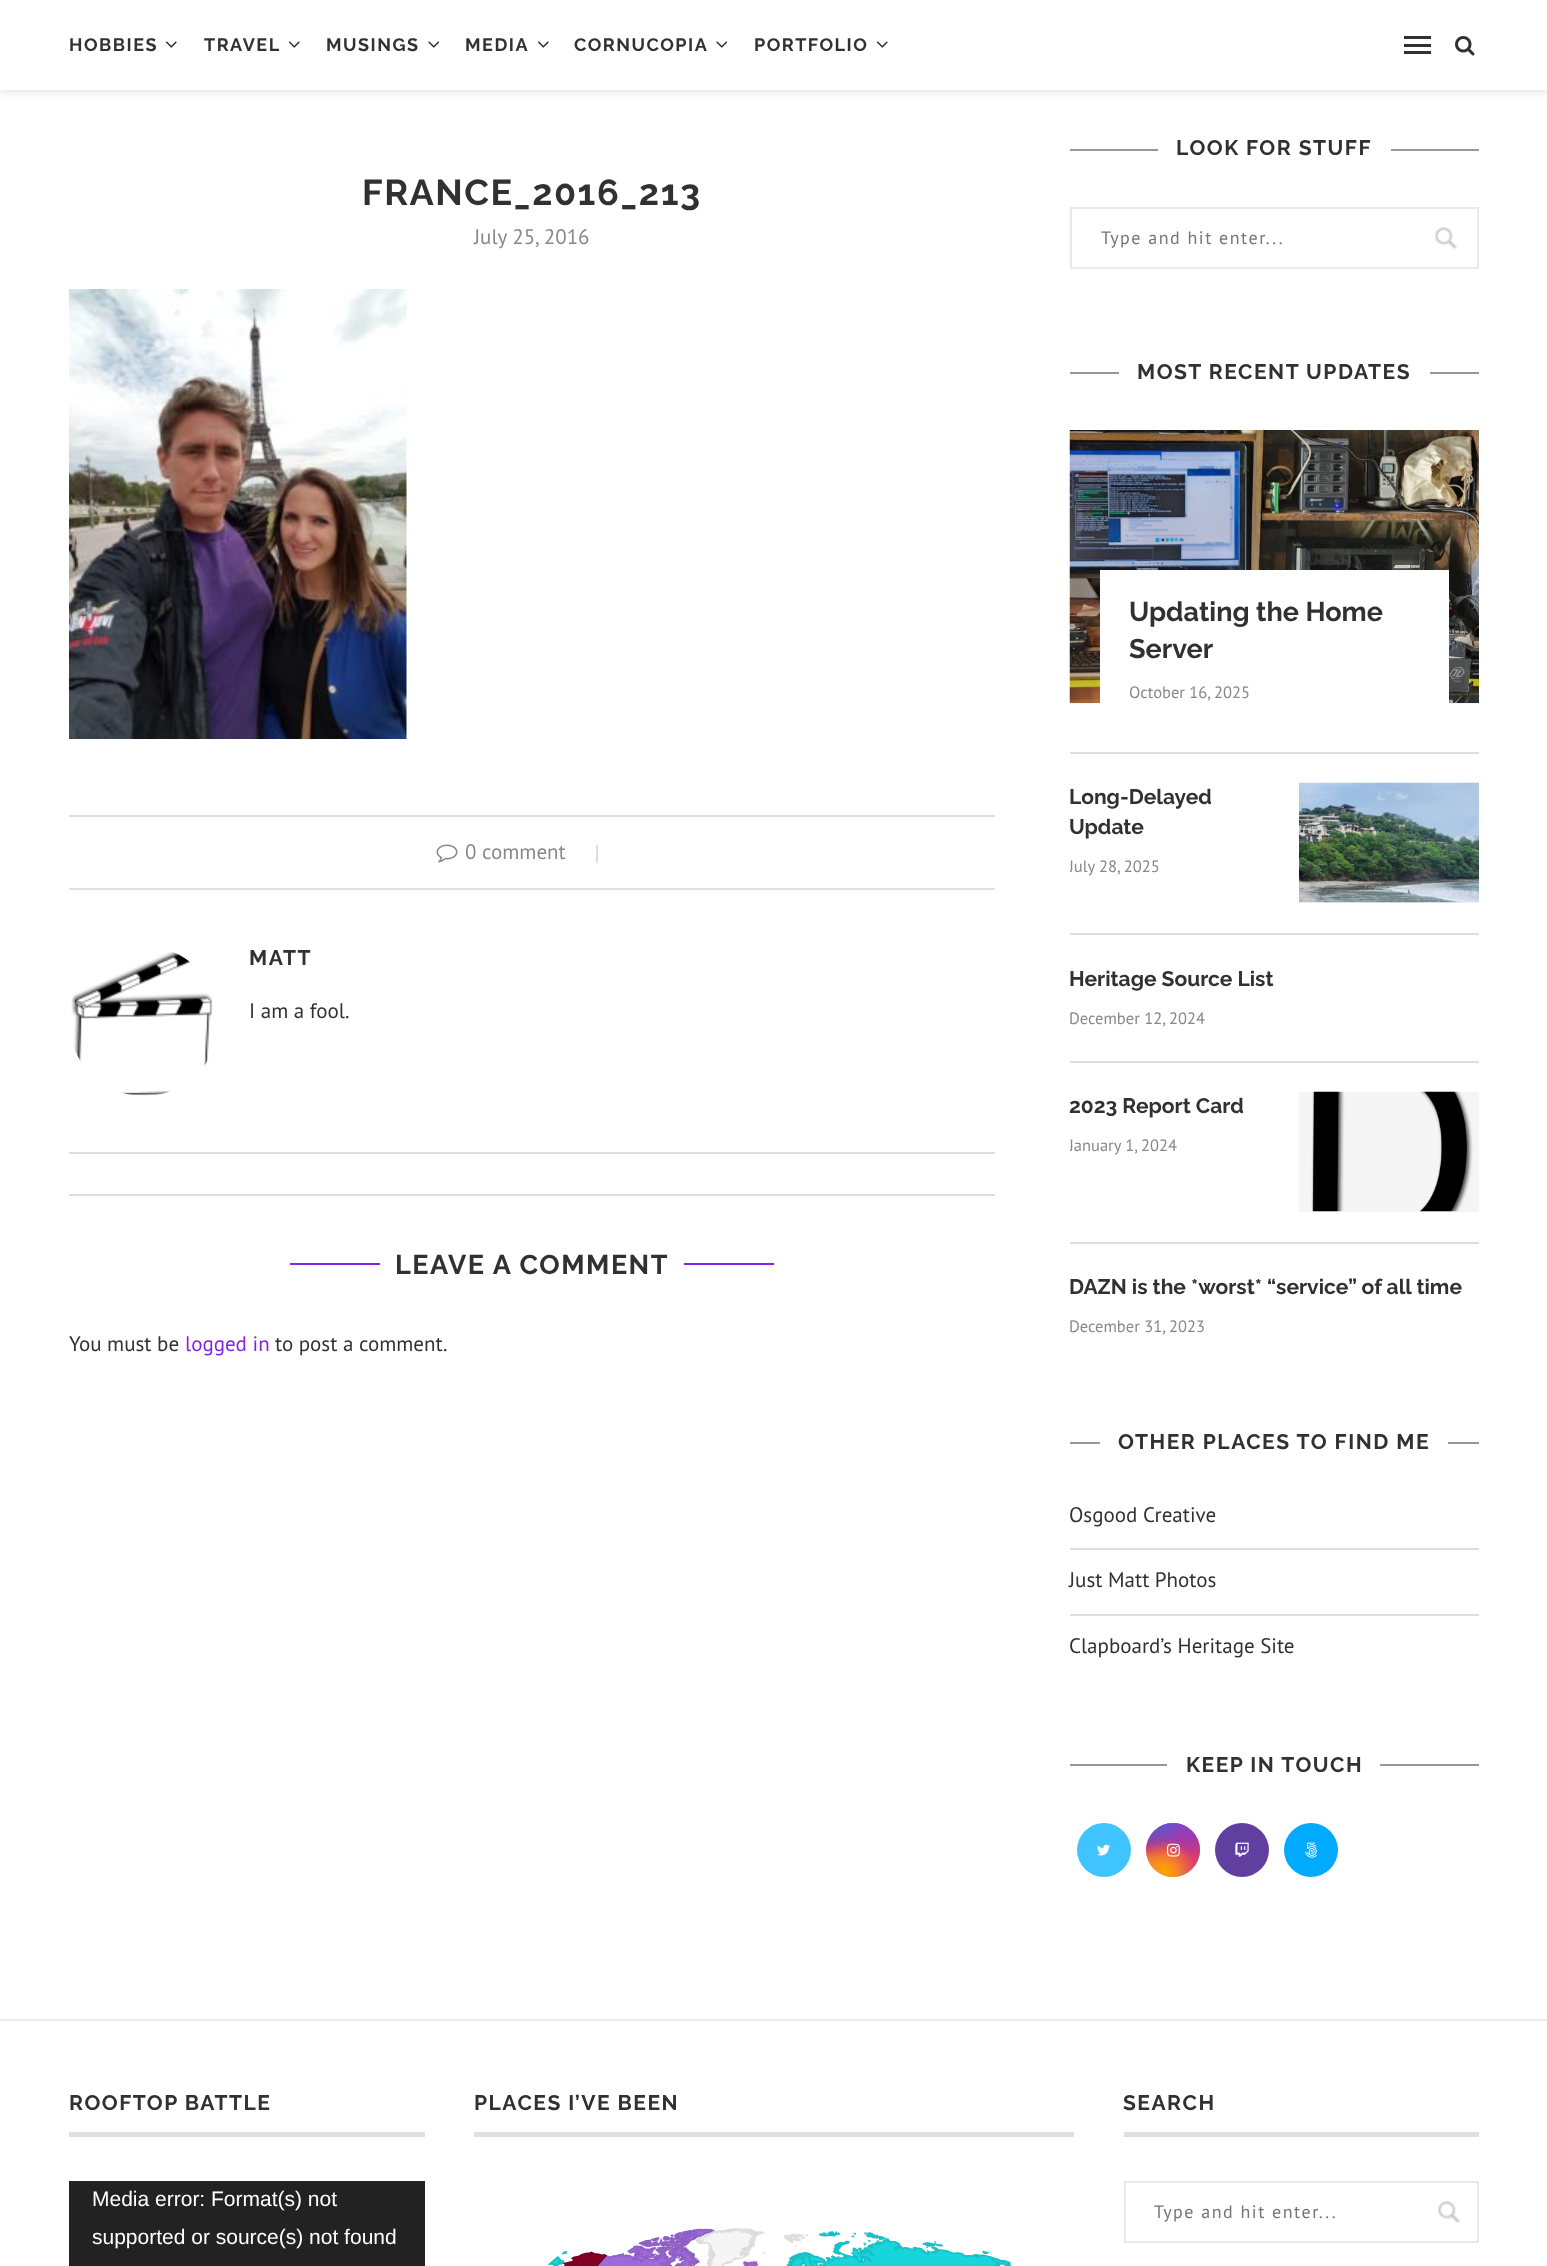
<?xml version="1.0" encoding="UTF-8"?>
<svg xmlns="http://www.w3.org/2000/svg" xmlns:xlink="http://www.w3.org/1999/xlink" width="1547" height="2266">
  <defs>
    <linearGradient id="g1" gradientUnits="userSpaceOnUse" x1="1173" y1="1823" x2="1173" y2="1877"><stop offset="0" stop-color="#6559ca" /><stop offset="0.3" stop-color="#bc318f" /><stop offset="0.5" stop-color="#e33f5f" /><stop offset="0.7" stop-color="#f77638" /><stop offset="1" stop-color="#fec66d" /></linearGradient>
    <radialGradient id="g2" gradientUnits="userSpaceOnUse" cx="1200" cy="1877" r="76"><stop offset="0" stop-color="#d43178" /><stop offset="1" stop-color="#d43178" stop-opacity="0" /></radialGradient>
    <radialGradient id="g3" gradientUnits="userSpaceOnUse" cx="0" cy="0" r="1" gradientTransform="matrix(46 0 0 92 1178 1812)"><stop offset="0" stop-color="#8f44c7" /><stop offset="0.5" stop-color="#8f44c7" stop-opacity="0" /></radialGradient>
    <radialGradient id="g4" gradientUnits="userSpaceOnUse" cx="1200" cy="1823" r="76"><stop offset="0" stop-color="#893dc2" /><stop offset="0.5" stop-color="#893dc2" stop-opacity="0" /></radialGradient>
    <radialGradient id="g5" gradientUnits="userSpaceOnUse" cx="0" cy="0" r="1" gradientTransform="matrix(61 0 0 115 1157 1796)"><stop offset="0" stop-color="#5258cf" /><stop offset="0.5" stop-color="#5258cf" stop-opacity="0" /></radialGradient>
    <radialGradient id="g6" gradientUnits="userSpaceOnUse" cx="0" cy="0" r="1" gradientTransform="matrix(76 0 0 95 1146 1809)"><stop offset="0" stop-color="#5258cf" /><stop offset="0.5" stop-color="#5258cf" stop-opacity="0" /></radialGradient>
    <radialGradient id="g7" gradientUnits="userSpaceOnUse" cx="1146" cy="1898" r="93"><stop offset="0" stop-color="#efa11c" /><stop offset="0.5" stop-color="#efa11c" stop-opacity="0" /></radialGradient>
    <radialGradient id="g8" gradientUnits="userSpaceOnUse" cx="1165" cy="1871" r="60"><stop offset="0" stop-color="#ffa100" /><stop offset="0.5" stop-color="#ffa100" stop-opacity="0" /></radialGradient>
    <clipPath id="clip1"><rect x="1070" y="783" width="199" height="95" /></clipPath>
    <clipPath id="clip2"><rect x="1070" y="1092" width="199" height="65" /></clipPath>
  </defs>
  <rect width="100%" height="100%" fill="#ffffff" />
  <rect y="2" width="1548" height="90" fill="#bebebe" fill-opacity="0.46" filter="blur(4px)" />
  <rect width="1547" height="90" fill="#ffffff" />
  <image x="165" y="41" width="12" height="7" xlink:href="image1.png" />
  <image x="288" y="41" width="12" height="7" xlink:href="image1.png" />
  <image x="428" y="41" width="12" height="7" xlink:href="image2.png" />
  <image x="537" y="41" width="12" height="7" xlink:href="image1.png" />
  <image x="716" y="41" width="12" height="7" xlink:href="image2.png" />
  <image x="876" y="41" width="12" height="7" xlink:href="image1.png" />
  <rect x="1404" y="36" width="27" height="3" fill="#313131" />
  <rect x="1404" y="51" width="27" height="3" fill="#313131" />
  <rect x="1404" y="44" width="27" height="3" fill="#313131" />
  <image x="1455" y="36" width="20" height="20" xlink:href="image3.png" />
  <image x="69" y="289" width="338" height="450" xlink:href="image4.png" />
  <rect x="69" y="815" width="926" height="2" fill="#dedede" />
  <image x="436" y="844" width="22" height="19" xlink:href="image5.png" />
  <rect x="596" y="845" width="2" height="18" fill="#dedede" />
  <rect x="69" y="888" width="926" height="2" fill="#e0e0e0" />
  <image x="71" y="952" width="142" height="144" xlink:href="image6.png" />
  <rect x="69" y="1152" width="926" height="2" fill="#dedede" />
  <rect x="69" y="1194" width="926" height="2" fill="#dedede" />
  <rect x="290" y="1263" width="90" height="2" fill="#8224e3" />
  <rect x="684" y="1263" width="90" height="2" fill="#8224e3" />
  <rect x="1070" y="149" width="88" height="2" fill="#989898" />
  <rect x="1391" y="149" width="88" height="2" fill="#989898" />
  <image x="1435" y="227" width="22" height="22" xlink:href="image7.png" />
  <rect x="1071" y="208" width="407" height="60" fill="none" stroke="#e9e9e9" stroke-width="2" />
  <rect x="1070" y="372" width="49" height="2" fill="#989898" />
  <rect x="1430" y="372" width="49" height="2" fill="#989898" />
  <rect x="1070" y="752" width="409" height="2" fill="#dedede" />
  <rect x="1070" y="703" width="409" height="1" fill="#f5f5f5" />
  <image x="1069" y="430" width="410" height="273" xlink:href="image8.png" />
  <rect x="1100" y="570" width="349" height="134" fill="#ffffff" />
  <rect x="1070" y="933" width="409" height="2" fill="#dedede" />
  <rect x="1299" y="902" width="180" height="1" fill="#f5f5f5" />
  <image x="1299" y="782" width="180" height="121" xlink:href="image9.png" />
  <rect x="1070" y="1061" width="409" height="2" fill="#dedede" />
  <rect x="1070" y="1242" width="409" height="2" fill="#dedede" />
  <rect x="1299" y="1092" width="180" height="120" fill="#f5f5f5" />
  <image x="1311" y="1091" width="162" height="121" xlink:href="image10.png" />
  <rect x="1070" y="1442" width="30" height="2" fill="#989898" />
  <rect x="1448" y="1442" width="31" height="2" fill="#989898" />
  <rect x="1070" y="1548" width="409" height="2" fill="#dedede" />
  <rect x="1070" y="1614" width="409" height="2" fill="#dedede" />
  <rect x="1070" y="1764" width="97" height="2" fill="#989898" />
  <rect x="1380" y="1764" width="99" height="2" fill="#989898" />
  <circle cx="1104" cy="1850" r="27" fill="#40c4ff" />
  <image x="1097" y="1844" width="13" height="12" xlink:href="image11.png" />
  <circle cx="1173" cy="1850" r="27" fill="url(#g1)" />
  <circle cx="1173" cy="1850" r="27" fill="url(#g2)" />
  <circle cx="1173" cy="1850" r="27" fill="url(#g3)" />
  <circle cx="1173" cy="1850" r="27" fill="url(#g4)" />
  <circle cx="1173" cy="1850" r="27" fill="url(#g5)" />
  <circle cx="1173" cy="1850" r="27" fill="url(#g6)" />
  <circle cx="1173" cy="1850" r="27" fill="url(#g7)" />
  <circle cx="1173" cy="1850" r="27" fill="url(#g8)" />
  <image x="1167" y="1843" width="13" height="14" xlink:href="image12.png" />
  <circle cx="1242" cy="1850" r="27" fill="#613fa0" />
  <image x="1235" y="1842" width="14" height="15" xlink:href="image13.png" />
  <circle cx="1311" cy="1850" r="27" fill="#00aaff" />
  <image x="1305" y="1842" width="12" height="16" xlink:href="image14.png" />
  <rect y="2019" width="1547" height="2" fill="#ececec" />
  <rect x="69" y="2132" width="356" height="5" fill="#e0e0e0" />
  <rect x="69" y="2181" width="356" height="85" fill="#222222" />
  <rect x="474" y="2132" width="600" height="5" fill="#e0e0e0" />
  <image x="548" y="2228" width="465" height="38" xlink:href="image15.png" />
  <rect x="1124" y="2132" width="355" height="5" fill="#e0e0e0" />
  <image x="1438" y="2201" width="22" height="22" xlink:href="image7.png" />
  <rect x="1125" y="2182" width="353" height="60" fill="none" stroke="#e9e9e9" stroke-width="2" />
  <text x="69" y="51" style="font-family: Raleway; font-size: 18px; font-weight: bold; letter-spacing: 1.5px; fill: #313131">HOBBIES</text>
  <text x="204" y="51" style="font-family: Raleway; font-size: 18px; font-weight: bold; letter-spacing: 1.5px; fill: #313131">TRAVEL</text>
  <text x="326" y="51" style="font-family: Raleway; font-size: 18px; font-weight: bold; letter-spacing: 1.5px; fill: #313131">MUSINGS</text>
  <text x="465" y="51" style="font-family: Raleway; font-size: 18px; font-weight: bold; letter-spacing: 1.5px; fill: #313131">MEDIA</text>
  <text x="574" y="51" style="font-family: Raleway; font-size: 18px; font-weight: bold; letter-spacing: 1.5px; fill: #313131">CORNUCOPIA</text>
  <text x="754" y="51" style="font-family: Raleway; font-size: 18px; font-weight: bold; letter-spacing: 1.5px; fill: #313131">PORTFOLIO</text>
  <text x="362" y="205" style="font-family: Raleway; font-size: 36px; font-weight: bold; letter-spacing: 1.5px; fill: #313131">FRANCE_2016_213</text>
  <text x="474" y="244" style="font-family: PT Sans; font-size: 21px; fill: #888888">July 25, 2016</text>
  <text x="465" y="859" style="font-family: PT Sans; font-size: 21px; fill: #888888">0 comment</text>
  <text x="249" y="965" style="font-family: Raleway; font-size: 21px; font-weight: bold; letter-spacing: 1.5px; fill: #313131">MATT</text>
  <text x="249" y="1018" style="font-family: PT Sans; font-size: 21px; fill: #313131">I am a fool.</text>
  <text x="395" y="1274" style="font-family: Raleway; font-size: 27px; font-weight: bold; letter-spacing: 1.5px; fill: #313131">LEAVE A COMMENT</text>
  <text x="69" y="1351" style="font-family: PT Sans; font-size: 21px; fill: #313131">You must be</text>
  <text x="185" y="1351" style="font-family: PT Sans; font-size: 21px; fill: #8224e3">logged in</text>
  <text x="275" y="1351" style="font-family: PT Sans; font-size: 21px; fill: #313131">to post a comment.</text>
  <text x="1176" y="155" style="font-family: Raleway; font-size: 21px; font-weight: bold; letter-spacing: 1.5px; fill: #313131">LOOK FOR STUFF</text>
  <text x="1101" y="244" style="font-family: PT Sans; font-size: 18px; letter-spacing: 1.5px; fill: #757575">Type and hit enter...</text>
  <text x="1137" y="379" style="font-family: Raleway; font-size: 21px; font-weight: bold; letter-spacing: 1.5px; fill: #313131">MOST RECENT UPDATES</text>
  <text x="1129" y="621" style="font-family: Raleway; font-size: 27px; font-weight: bold; fill: #313131">Updating the Home</text>
  <text x="1129" y="658" style="font-family: Raleway; font-size: 27px; font-weight: bold; fill: #313131">Server</text>
  <text x="1129" y="698" style="font-family: PT Sans; font-size: 16.5px; fill: #888888">October 16, 2025</text>
  <text x="1069" y="804" style="font-family: Raleway; font-size: 21px; font-weight: bold; fill: #313131">Long-Delayed</text>
  <text x="1069" y="834" style="font-family: Raleway; font-size: 21px; font-weight: bold; fill: #313131">Update</text>
  <g clip-path="url(#clip1)">
    <text x="1069" y="872" style="font-family: PT Sans; font-size: 16.5px; fill: #888888">July 28, 2025</text>
  </g>
  <text x="1069" y="986" style="font-family: Raleway; font-size: 21px; font-weight: bold; fill: #313131">Heritage Source List</text>
  <text x="1069" y="1024" style="font-family: PT Sans; font-size: 16.5px; fill: #888888">December 12, 2024</text>
  <text x="1069" y="1113" style="font-family: Raleway; font-size: 21px; font-weight: bold; fill: #313131">2023 Report Card</text>
  <g clip-path="url(#clip2)">
    <text x="1069" y="1151" style="font-family: PT Sans; font-size: 16.5px; fill: #888888">January 1, 2024</text>
  </g>
  <text x="1069" y="1294" style="font-family: Raleway; font-size: 21px; font-weight: bold; fill: #313131">DAZN is the *worst* “service” of all time</text>
  <text x="1069" y="1332" style="font-family: PT Sans; font-size: 16.5px; fill: #888888">December 31, 2023</text>
  <text x="1118" y="1449" style="font-family: Raleway; font-size: 21px; font-weight: bold; letter-spacing: 1.5px; fill: #313131">OTHER PLACES TO FIND ME</text>
  <text x="1069" y="1522" style="font-family: PT Sans; font-size: 21px; fill: #313131">Osgood Creative</text>
  <text x="1069" y="1587" style="font-family: PT Sans; font-size: 21px; fill: #313131">Just Matt Photos</text>
  <text x="1069" y="1653" style="font-family: PT Sans; font-size: 21px; fill: #313131">Clapboard’s Heritage Site</text>
  <text x="1186" y="1772" style="font-family: Raleway; font-size: 21px; font-weight: bold; letter-spacing: 1.5px; fill: #313131">KEEP IN TOUCH</text>
  <text x="69" y="2110" style="font-family: Raleway; font-size: 21px; font-weight: bold; letter-spacing: 1.5px; fill: #313131">ROOFTOP BATTLE</text>
  <text x="92" y="2206" style="font-family: Liberation Sans; font-size: 21px; fill: #ffffff">Media error: Format(s) not</text>
  <text x="92" y="2244" style="font-family: Liberation Sans; font-size: 21px; fill: #ffffff">supported or source(s) not found</text>
  <text x="474" y="2110" style="font-family: Raleway; font-size: 21px; font-weight: bold; letter-spacing: 1.5px; fill: #313131">PLACES I’VE BEEN</text>
  <text x="1123" y="2110" style="font-family: Raleway; font-size: 21px; font-weight: bold; letter-spacing: 1.5px; fill: #313131">SEARCH</text>
  <text x="1154" y="2218" style="font-family: PT Sans; font-size: 18px; letter-spacing: 1.5px; fill: #757575">Type and hit enter...</text>
</svg>
